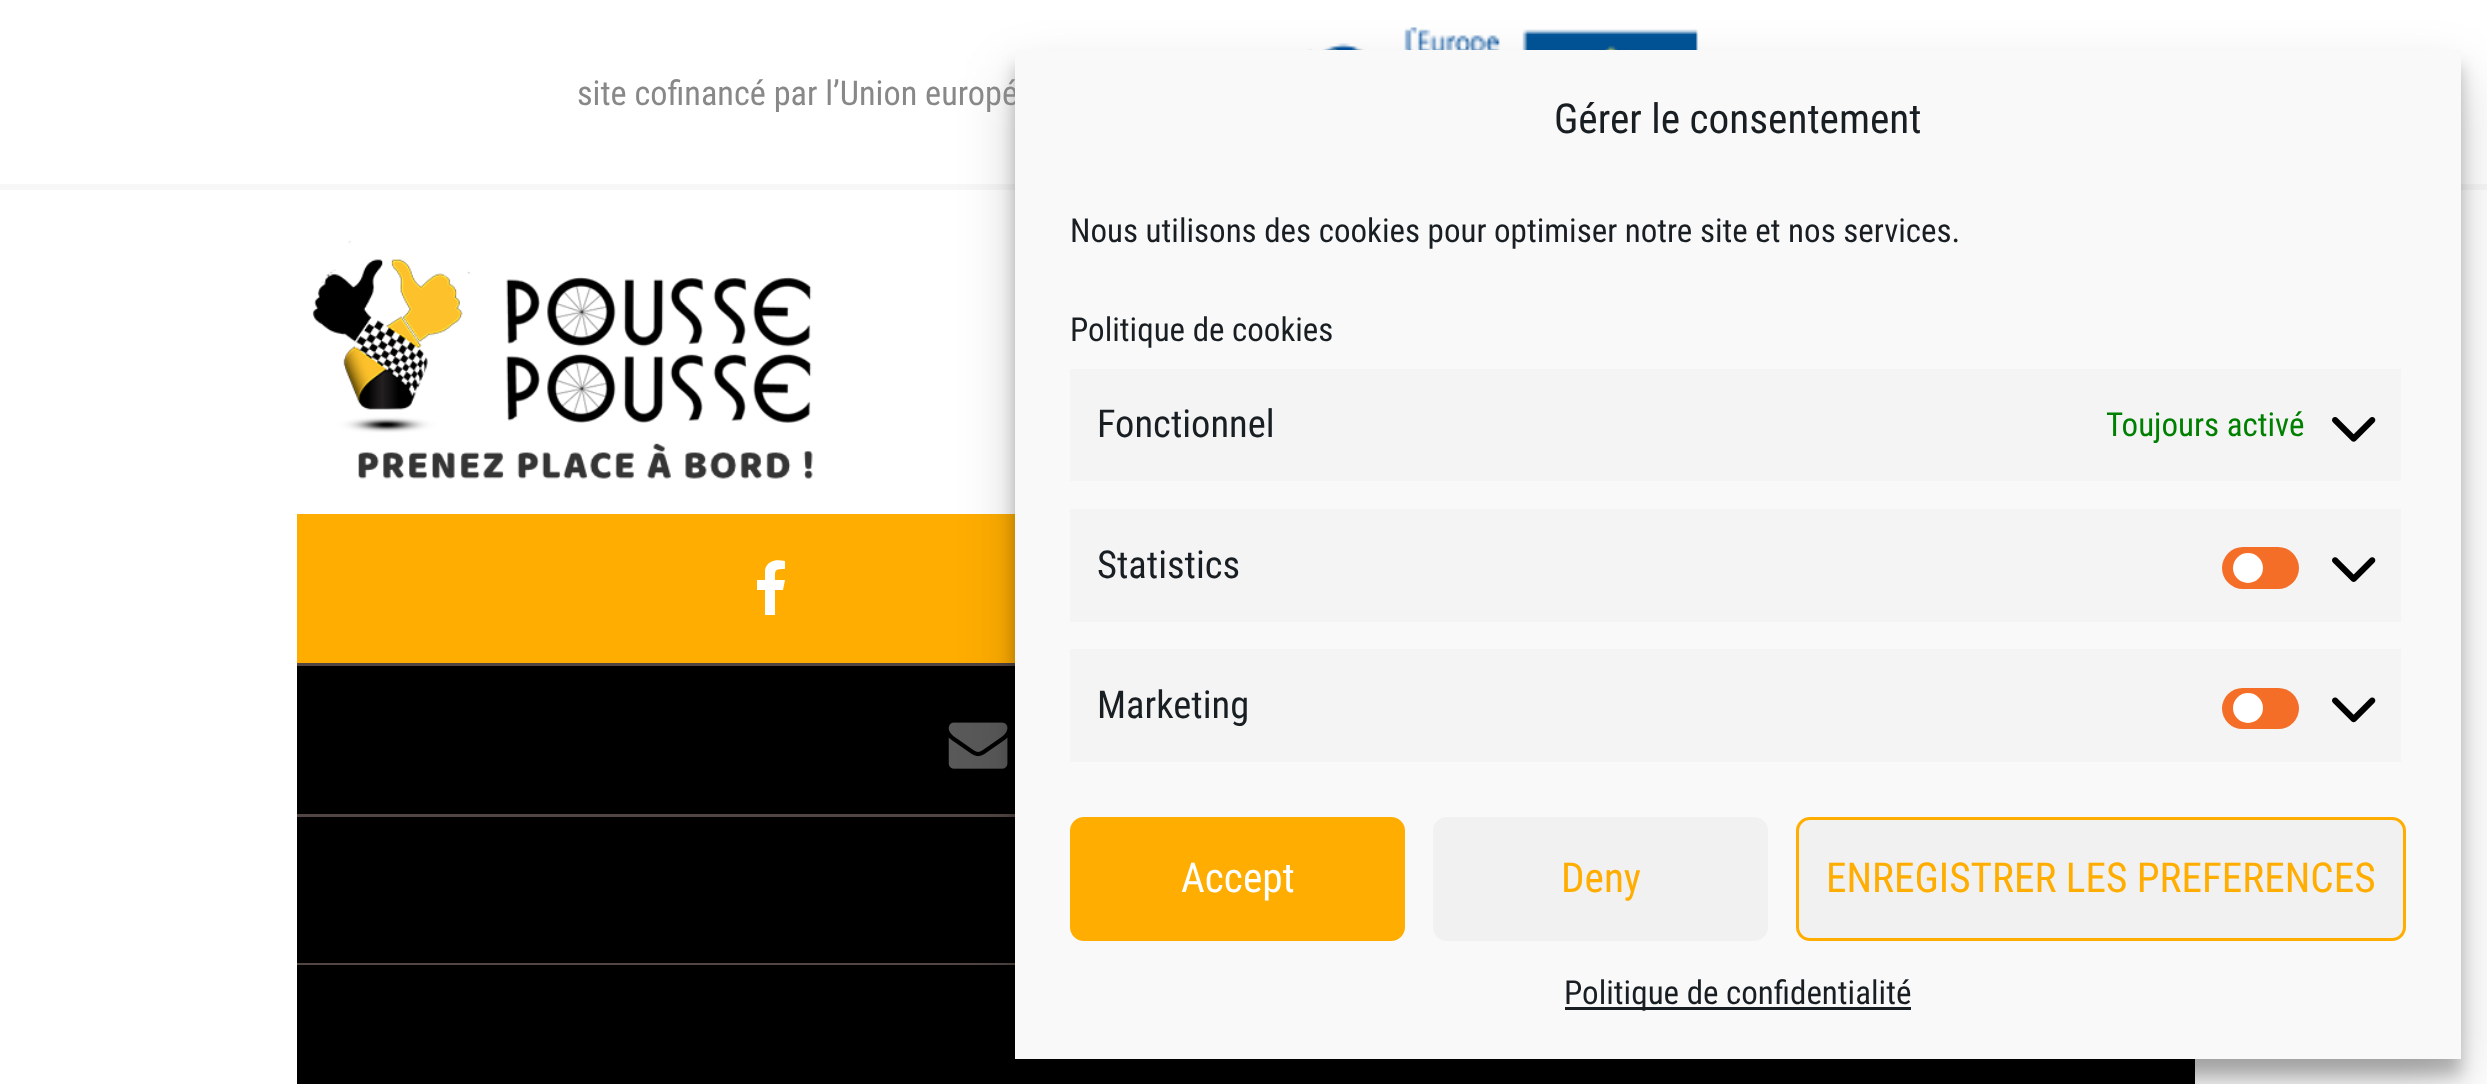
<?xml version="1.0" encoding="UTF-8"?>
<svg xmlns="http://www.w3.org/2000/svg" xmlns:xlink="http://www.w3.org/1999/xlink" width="2487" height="1084">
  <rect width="100%" height="100%" fill="#ffffff" />
  <image x="1308" y="27" width="390" height="23" xlink:href="image1.png" />
  <rect y="184" width="2487" height="6" fill="#f7f7f7" />
  <image x="312" y="241" width="501" height="238" xlink:href="image2.png" />
  <rect x="297" y="663" width="718" height="3" fill="#514644" />
  <rect x="297" y="514" width="718" height="149" fill="#ffad00" />
  <path d="M 785 561 v 8 c -11 0 -10 1 -10 11 h 10 l -2 10 h -8 v 25 h -10 v -25 h -8 v -10 h 8 v -10 c 2 -10 12 -11 20 -9 z" fill="#ffffff" />
  <rect x="297" y="666" width="718" height="148" fill="#000000" />
  <rect x="297" y="814" width="718" height="3" fill="#514644" />
  <image x="948" y="722" width="60" height="47" xlink:href="image3.png" />
  <rect x="297" y="817" width="718" height="146" fill="#000000" />
  <rect x="297" y="963" width="718" height="2" fill="#514644" />
  <rect x="297" y="965" width="1898" height="119" fill="#000000" />
  <rect x="1015" y="66" width="1446" height="1009" fill="#000000" fill-opacity="0.23" filter="blur(8px)" />
  <rect x="1015" y="77" width="1446" height="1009" fill="#000000" fill-opacity="0.19" filter="blur(27.5px)" />
  <text x="577" y="105" style="font-family: Roboto Condensed; font-size: 34.25px; fill: #888888">site cofinancé par l’Union europé</text>
  <rect x="1015" y="50" width="1446" height="1009" fill="#f9f9f9" />
  <text x="1554" y="133" style="font-family: Roboto Condensed; font-size: 41.25px; fill: #191e23">Gérer le consentement</text>
  <text x="1070" y="242" style="font-family: Roboto Condensed; font-size: 33px; fill: #191e23">Nous utilisons des cookies pour optimiser notre site et nos services.</text>
  <text x="1070" y="341" style="font-family: Roboto Condensed; font-size: 33px; fill: #191e23">Politique de cookies</text>
  <rect x="1070" y="369" width="1331" height="112" fill="#f4f4f4" />
  <text x="1097" y="437" style="font-family: Roboto Condensed; font-size: 38.5px; fill: #191e23">Fonctionnel</text>
  <text x="2106" y="436" style="font-family: Roboto Condensed; font-size: 33px; fill: #008000">Toujours activé</text>
  <image x="2332" y="417" width="44" height="25" xlink:href="image4.png" />
  <rect x="1070" y="509" width="1331" height="113" fill="#f4f4f4" />
  <text x="1097" y="578" style="font-family: Roboto Condensed; font-size: 38.5px; fill: #191e23">Statistics</text>
  <rect x="2222" y="547" width="77" height="42" rx="21" fill="#f56e28" />
  <circle cx="2248" cy="568" r="15" fill="#ffffff" />
  <image x="2332" y="557" width="44" height="25" xlink:href="image5.png" />
  <rect x="1070" y="649" width="1331" height="113" fill="#f4f4f4" />
  <text x="1097" y="718" style="font-family: Roboto Condensed; font-size: 38.5px; fill: #191e23">Marketing</text>
  <rect x="2222" y="688" width="77" height="41" rx="20.5" fill="#f56e28" />
  <circle cx="2248" cy="708" r="15" fill="#ffffff" />
  <image x="2332" y="697" width="44" height="26" xlink:href="image6.png" />
  <rect x="1071.5" y="818.5" width="332" height="121" rx="12.5" fill="#ffad00" stroke="#ffad00" stroke-width="3" />
  <text x="1181" y="892" style="font-family: Roboto Condensed; font-size: 41.25px; fill: #ffffff">Accept</text>
  <rect x="1433" y="817" width="335" height="124" rx="14" fill="#f1f1f1" />
  <text x="1561" y="892" style="font-family: Roboto Condensed; font-size: 41.25px; fill: #ffad00">Deny</text>
  <rect x="1797.5" y="818.5" width="607" height="121" rx="12.5" fill="#f1f1f1" stroke="#ffad00" stroke-width="3" />
  <text x="1826" y="892" style="font-family: Roboto Condensed; font-size: 41.25px; fill: #ffad00">ENREGISTRER LES PREFERENCES</text>
  <rect x="1565" y="1007" width="346" height="3" fill="#191e23" />
  <text x="1564" y="1004" style="font-family: Roboto Condensed; font-size: 33px; fill: #191e23">Politique de confidentialité</text>
</svg>
